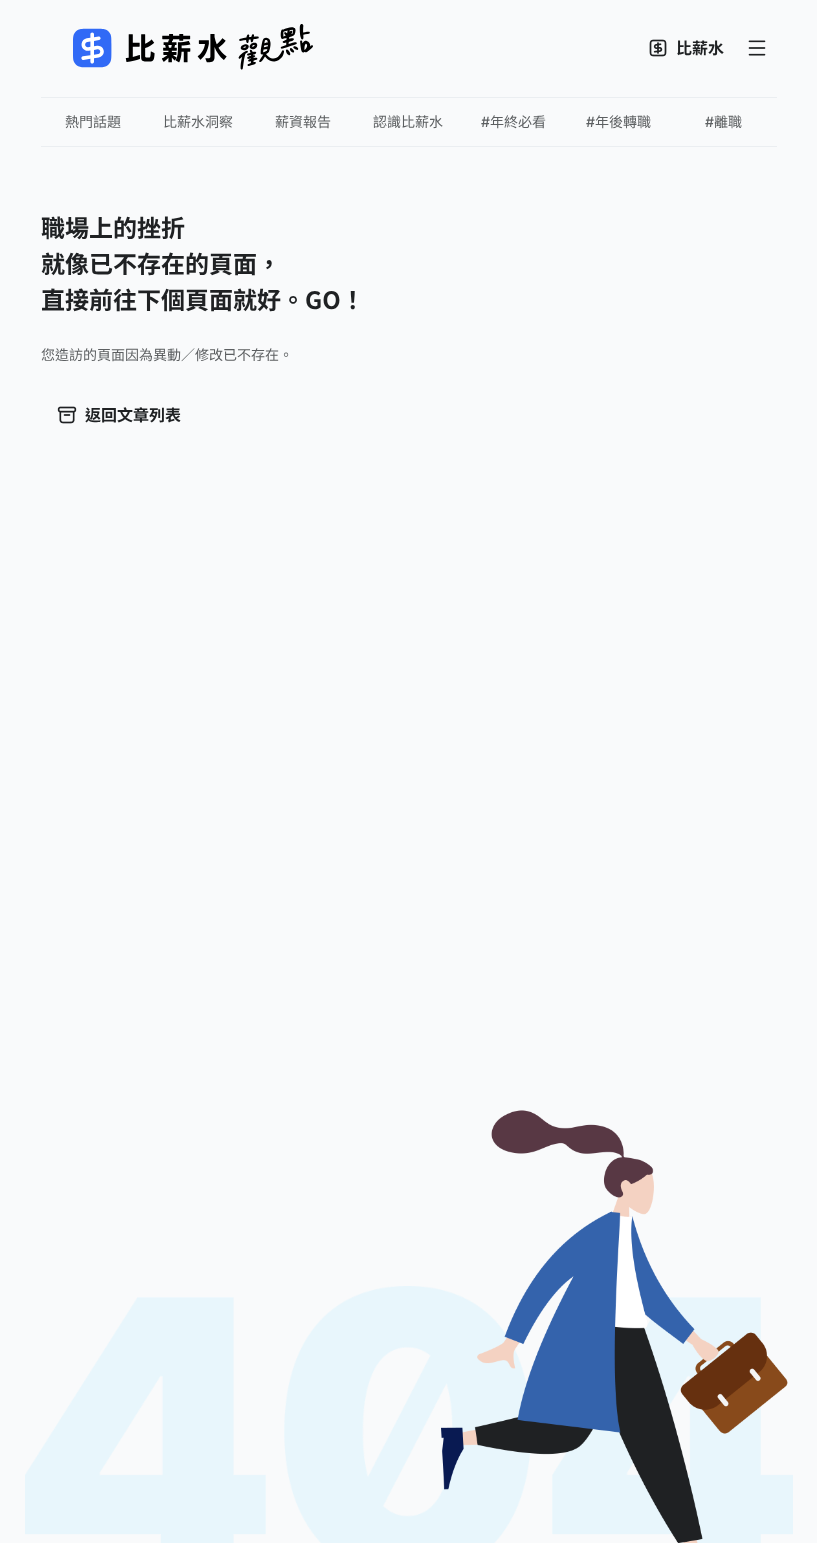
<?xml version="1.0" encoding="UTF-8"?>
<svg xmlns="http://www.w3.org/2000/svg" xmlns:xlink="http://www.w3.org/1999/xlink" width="817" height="1543">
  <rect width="100%" height="100%" fill="#f9fafb" />
  <image x="73" y="24" width="240" height="46" xlink:href="image1.png" />
  <image x="649" y="39" width="18" height="18" xlink:href="image2.png" />
  <image x="748" y="40" width="18" height="16" xlink:href="image3.png" />
  <rect x="41" y="97" width="736" height="1" fill="#ebeef1" />
  <rect x="41" y="146" width="736" height="1" fill="#ebeef1" />
  <image x="57" y="406" width="20" height="18" xlink:href="image4.png" />
  <image x="25" y="1286" width="768" height="257" xlink:href="image6.png" />
  <image x="441" y="1110" width="347" height="433" xlink:href="image5.png" />
  <text x="676" y="54" style="font-family: Noto Sans TC; font-size: 16px; font-weight: bold; fill: #1f2123">比薪水</text>
  <text x="65" y="127" style="font-family: Noto Sans TC; font-size: 14px; fill: #5c5f61">熱門話題</text>
  <text x="163" y="127" style="font-family: Noto Sans TC; font-size: 14px; fill: #5c5f61">比薪水洞察</text>
  <text x="275" y="127" style="font-family: Noto Sans TC; font-size: 14px; fill: #5c5f61">薪資報告</text>
  <text x="373" y="127" style="font-family: Noto Sans TC; font-size: 14px; fill: #5c5f61">認識比薪水</text>
  <text x="481" y="127" style="font-family: Inter; font-size: 14px; font-weight: 500; fill: #5c5f61">#</text>
  <text x="490" y="127" style="font-family: Noto Sans TC; font-size: 14px; fill: #5c5f61">年終必看</text>
  <text x="586" y="127" style="font-family: Inter; font-size: 14px; font-weight: 500; fill: #5c5f61">#</text>
  <text x="595" y="127" style="font-family: Noto Sans TC; font-size: 14px; fill: #5c5f61">年後轉職</text>
  <text x="705" y="127" style="font-family: Inter; font-size: 14px; font-weight: 500; fill: #5c5f61">#</text>
  <text x="714" y="127" style="font-family: Noto Sans TC; font-size: 14px; fill: #5c5f61">離職</text>
  <text x="41" y="237" style="font-family: Noto Sans TC; font-size: 24px; font-weight: bold; fill: #1f2123">職場上的挫折</text>
  <text x="41" y="273" style="font-family: Noto Sans TC; font-size: 24px; font-weight: bold; fill: #1f2123">就像已不存在的頁面，</text>
  <text x="41" y="309" style="font-family: Noto Sans TC; font-size: 24px; font-weight: bold; fill: #1f2123">直接前往下個頁面就好。GO！</text>
  <text x="41" y="360" style="font-family: Noto Sans TC; font-size: 14px; fill: #5c5f61">您造訪的頁面因為異動／修改已不存在。</text>
  <text x="85" y="421" style="font-family: Noto Sans TC; font-size: 16px; font-weight: bold; fill: #1f2123">返回文章列表</text>
</svg>
